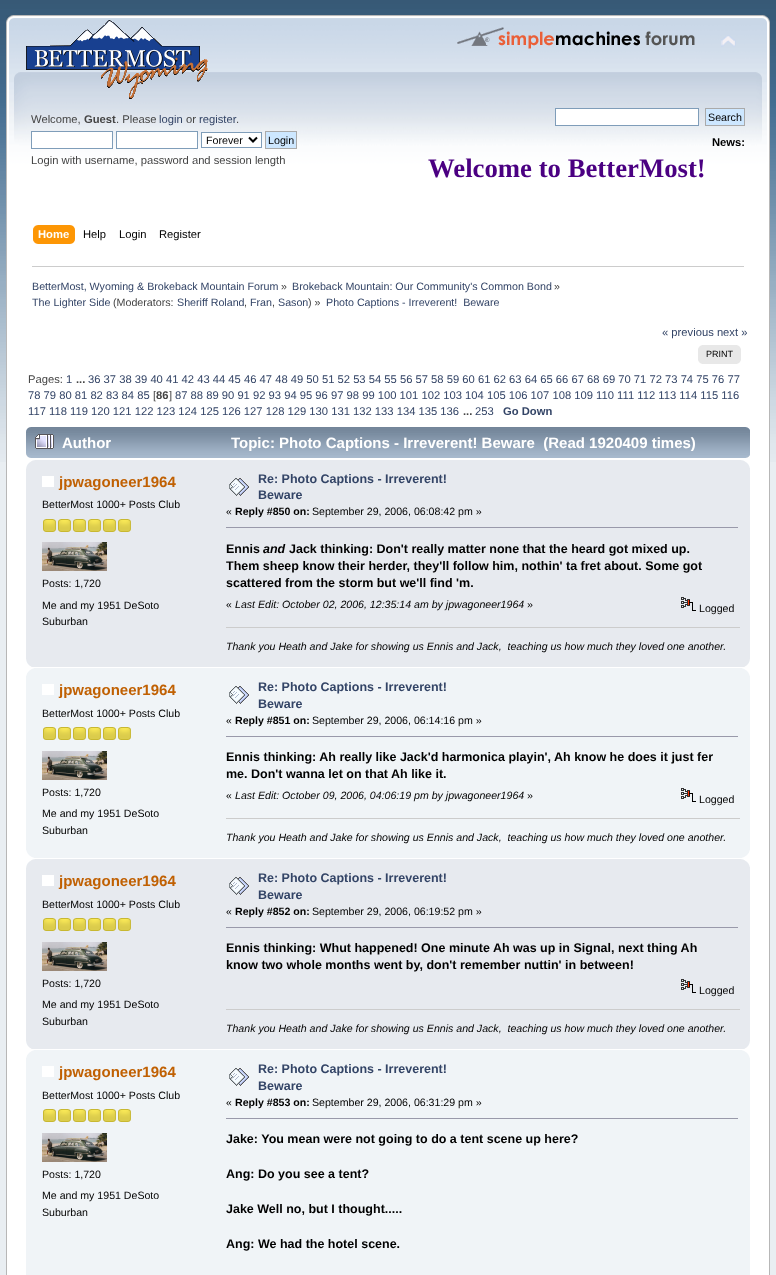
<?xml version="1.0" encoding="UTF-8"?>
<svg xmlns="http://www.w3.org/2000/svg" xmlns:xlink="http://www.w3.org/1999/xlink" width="776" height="1275">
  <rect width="100%" height="100%" fill="#e9eef2" />
  <image x="0" y="0" width="776" height="462" xlink:href="image1.png" />
  <image x="6" y="15" width="750" height="245" xlink:href="image2.png" />
  <image x="756" y="15" width="14" height="245" xlink:href="image3.png" />
  <image x="26" y="20" width="182" height="79" xlink:href="image4.png" />
  <image x="457" y="27" width="238" height="22" xlink:href="image5.png" />
  <image x="721" y="35" width="15" height="12" xlink:href="image6.png" />
  <rect x="31.5" y="131.5" width="81" height="17" fill="#ffffff" stroke="#7f9db9" />
  <rect x="116.5" y="131.5" width="81" height="17" fill="#ffffff" stroke="#7f9db9" />
  <rect x="201.5" y="132.5" width="60" height="15" fill="#ffffff" stroke="#7f9db9" />
  <path d="M 249 137.5 l 4 4 l 4 -4" fill="none" stroke="#000000" stroke-width="2" />
  <rect x="265.5" y="131.5" width="31" height="17" fill="#cde7ff" stroke="#aaaaaa" />
  <rect x="555.5" y="108.5" width="143" height="17" fill="#ffffff" stroke="#7f9db9" />
  <rect x="705.5" y="108.5" width="39" height="17" fill="#cde7ff" stroke="#aaaaaa" />
  <image x="38" y="225" width="37" height="19" xlink:href="image7.png" />
  <image x="33" y="225" width="5" height="19" xlink:href="image8.png" />
  <rect x="7" y="260" width="762" height="1015" fill="#ffffff" />
  <rect x="6" y="260" width="1" height="1015" fill="#b7b7b7" />
  <rect x="769" y="260" width="1" height="1015" fill="#b7b7b7" />
  <rect x="32" y="266" width="712" height="1" fill="#cccccc" />
  <rect x="702" y="345" width="35" height="19" fill="#e8e8e8" />
  <image x="698" y="345" width="4" height="19" xlink:href="image9.png" />
  <image x="737" y="345" width="4" height="19" xlink:href="image10.png" />
  <image x="26" y="427" width="719" height="31" xlink:href="image11.png" />
  <image x="745" y="427" width="5" height="31" xlink:href="image12.png" />
  <image x="35" y="434" width="19" height="15" xlink:href="image13.png" />
  <rect x="26" y="460" width="724" height="207" fill="#e7eaef" />
  <image x="26" y="460" width="9" height="9" xlink:href="image14.png" />
  <image x="741" y="460" width="9" height="8" xlink:href="image15.png" />
  <rect x="42" y="476" width="12" height="11" fill="#ffffff" />
  <image x="43" y="519" width="13" height="13" xlink:href="image16.png" />
  <image x="58" y="519" width="13" height="13" xlink:href="image16.png" />
  <image x="73" y="519" width="13" height="13" xlink:href="image16.png" />
  <image x="88" y="519" width="13" height="13" xlink:href="image16.png" />
  <image x="103" y="519" width="13" height="13" xlink:href="image16.png" />
  <image x="118" y="519" width="13" height="13" xlink:href="image16.png" />
  <image x="42" y="542" width="65" height="29" xlink:href="image17.png" />
  <image x="229" y="478" width="20" height="18" xlink:href="image18.png" />
  <rect x="226" y="527" width="512" height="1" fill="#9999aa" />
  <image x="681" y="597" width="15" height="14" xlink:href="image19.png" />
  <rect x="226" y="627" width="514" height="1" fill="#cccccc" />
  <image x="26" y="659" width="6" height="8" xlink:href="image20.png" />
  <image x="744" y="659" width="6" height="8" xlink:href="image21.png" />
  <rect x="26" y="668" width="724" height="190" fill="#f0f4f7" />
  <image x="26" y="668" width="8" height="8" xlink:href="image22.png" />
  <image x="742" y="668" width="8" height="8" xlink:href="image23.png" />
  <rect x="42" y="684" width="12" height="11" fill="#ffffff" />
  <image x="43" y="727" width="13" height="13" xlink:href="image24.png" />
  <image x="58" y="727" width="13" height="13" xlink:href="image24.png" />
  <image x="73" y="727" width="13" height="13" xlink:href="image24.png" />
  <image x="88" y="727" width="13" height="13" xlink:href="image24.png" />
  <image x="103" y="727" width="13" height="13" xlink:href="image24.png" />
  <image x="118" y="727" width="13" height="13" xlink:href="image24.png" />
  <image x="42" y="751" width="65" height="29" xlink:href="image17.png" />
  <image x="229" y="686" width="20" height="18" xlink:href="image25.png" />
  <rect x="226" y="736" width="512" height="1" fill="#9999aa" />
  <image x="681" y="788" width="15" height="14" xlink:href="image26.png" />
  <rect x="226" y="818" width="514" height="1" fill="#cccccc" />
  <image x="26" y="850" width="8" height="8" xlink:href="image27.png" />
  <image x="742" y="850" width="8" height="8" xlink:href="image28.png" />
  <rect x="26" y="859" width="724" height="190" fill="#e7eaef" />
  <image x="26" y="859" width="9" height="9" xlink:href="image14.png" />
  <image x="741" y="859" width="9" height="8" xlink:href="image15.png" />
  <rect x="42" y="875" width="12" height="11" fill="#ffffff" />
  <image x="43" y="918" width="13" height="13" xlink:href="image16.png" />
  <image x="58" y="918" width="13" height="13" xlink:href="image16.png" />
  <image x="73" y="918" width="13" height="13" xlink:href="image16.png" />
  <image x="88" y="918" width="13" height="13" xlink:href="image16.png" />
  <image x="103" y="918" width="13" height="13" xlink:href="image16.png" />
  <image x="118" y="918" width="13" height="13" xlink:href="image16.png" />
  <image x="42" y="942" width="65" height="29" xlink:href="image17.png" />
  <image x="229" y="877" width="20" height="18" xlink:href="image18.png" />
  <rect x="226" y="927" width="512" height="1" fill="#9999aa" />
  <image x="681" y="979" width="15" height="14" xlink:href="image19.png" />
  <rect x="226" y="1009" width="514" height="1" fill="#cccccc" />
  <image x="26" y="1041" width="6" height="8" xlink:href="image20.png" />
  <image x="744" y="1041" width="6" height="8" xlink:href="image21.png" />
  <rect x="26" y="1050" width="724" height="225" fill="#f0f4f7" />
  <image x="26" y="1050" width="8" height="8" xlink:href="image22.png" />
  <image x="742" y="1050" width="8" height="8" xlink:href="image23.png" />
  <rect x="42" y="1066" width="12" height="11" fill="#ffffff" />
  <image x="43" y="1109" width="13" height="13" xlink:href="image24.png" />
  <image x="58" y="1109" width="13" height="13" xlink:href="image24.png" />
  <image x="73" y="1109" width="13" height="13" xlink:href="image24.png" />
  <image x="88" y="1109" width="13" height="13" xlink:href="image24.png" />
  <image x="103" y="1109" width="13" height="13" xlink:href="image24.png" />
  <image x="118" y="1109" width="13" height="13" xlink:href="image24.png" />
  <image x="42" y="1133" width="65" height="29" xlink:href="image17.png" />
  <image x="229" y="1068" width="20" height="18" xlink:href="image25.png" />
  <rect x="226" y="1118" width="512" height="1" fill="#9999aa" />
  <text x="31" y="123" style="font-family: Liberation Sans; font-size: 11.23px; fill: #444444">Welcome,</text>
  <text x="84" y="123" style="font-family: Liberation Sans; font-size: 11.23px; font-weight: bold; fill: #444444">Guest</text>
  <text x="116" y="123" style="font-family: Liberation Sans; font-size: 11.23px; fill: #444444">. Please</text>
  <text x="159" y="123" style="font-family: Liberation Sans; font-size: 11.23px; fill: #334466">login</text>
  <text x="186" y="123" style="font-family: Liberation Sans; font-size: 11.23px; fill: #444444">or</text>
  <text x="199" y="123" style="font-family: Liberation Sans; font-size: 11.23px; fill: #334466">register</text>
  <text x="236" y="123" style="font-family: Liberation Sans; font-size: 11.23px; fill: #444444">.</text>
  <text x="206" y="144" style="font-family: Liberation Sans; font-size: 10.7px; fill: #000000">Forever</text>
  <text x="268" y="144" style="font-family: Liberation Sans; font-size: 10.7px; fill: #000000">Login</text>
  <text x="31" y="164" style="font-family: Liberation Sans; font-size: 11.23px; fill: #444444">Login with username, password and session length</text>
  <text x="708" y="121" style="font-family: Liberation Sans; font-size: 10.7px; fill: #000000">Search</text>
  <text x="712" y="146" style="font-family: Liberation Sans; font-size: 11.23px; font-weight: bold; fill: #000000">News:</text>
  <text x="428" y="177" style="font-family: Liberation Serif; font-size: 26.75px; font-weight: bold; fill: #4b0082">Welcome to BetterMost!</text>
  <text x="38" y="238" style="font-family: Liberation Sans; font-size: 11.23px; font-weight: bold; fill: #ffffff">Home</text>
  <text x="83" y="238" style="font-family: Liberation Sans; font-size: 11.23px; fill: #000000">Help</text>
  <text x="119" y="238" style="font-family: Liberation Sans; font-size: 11.23px; fill: #000000">Login</text>
  <text x="159" y="238" style="font-family: Liberation Sans; font-size: 11.23px; fill: #000000">Register</text>
  <text x="32" y="290" style="font-family: Liberation Sans; font-size: 10.7px; fill: #334466">BetterMost, Wyoming &amp; Brokeback Mountain Forum</text>
  <text x="281" y="290" style="font-family: Liberation Sans; font-size: 10.7px; fill: #444444">»</text>
  <text x="292" y="290" style="font-family: Liberation Sans; font-size: 10.7px; fill: #334466">Brokeback Mountain: Our Community's Common Bond</text>
  <text x="554" y="290" style="font-family: Liberation Sans; font-size: 10.7px; fill: #444444">»</text>
  <text x="32" y="306" style="font-family: Liberation Sans; font-size: 10.7px; fill: #334466">The Lighter Side</text>
  <text x="113" y="306" style="font-family: Liberation Sans; font-size: 10.7px; fill: #444444">(Moderators:</text>
  <text x="177" y="306" style="font-family: Liberation Sans; font-size: 10.7px; fill: #334466">Sheriff Roland</text>
  <text x="244" y="306" style="font-family: Liberation Sans; font-size: 10.7px; fill: #444444">,</text>
  <text x="250" y="306" style="font-family: Liberation Sans; font-size: 10.7px; fill: #334466">Fran</text>
  <text x="272" y="306" style="font-family: Liberation Sans; font-size: 10.7px; fill: #444444">,</text>
  <text x="278" y="306" style="font-family: Liberation Sans; font-size: 10.7px; fill: #334466">Sason</text>
  <text x="308" y="306" style="font-family: Liberation Sans; font-size: 10.7px; fill: #444444">) »</text>
  <text x="326" y="306" style="font-family: Liberation Sans; font-size: 10.7px; fill: #334466" xml:space="preserve">Photo Captions - Irreverent!  Beware</text>
  <text x="662" y="336" style="font-family: Liberation Sans; font-size: 11.23px; fill: #334466">« previous next »</text>
  <text x="706" y="357" style="font-family: Liberation Sans; font-size: 9px; fill: #000000">PRINT</text>
  <text x="28" y="383" style="font-family: Liberation Sans; font-size: 11.23px; fill: #444444">Pages:</text>
  <text x="66" y="383" style="font-family: Liberation Sans; font-size: 11.23px; fill: #334466">1</text>
  <text x="76" y="383" style="font-family: Liberation Sans; font-size: 11.23px; font-weight: bold; fill: #444444">...</text>
  <text x="88" y="383" style="font-family: Liberation Sans; font-size: 11.23px; fill: #334466">36 37 38 39 40 41 42 43 44 45 46 47 48 49 50 51 52 53 54 55 56 57 58 59 60 61 62 63 64 65 66 67 68 69 70 71 72 73 74 75 76 77</text>
  <text x="28" y="399" style="font-family: Liberation Sans; font-size: 11.23px; fill: #334466">78 79 80 81 82 83 84 85</text>
  <text x="153" y="399" style="font-family: Liberation Sans; font-size: 11.23px; fill: #444444">[</text>
  <text x="156" y="399" style="font-family: Liberation Sans; font-size: 11.23px; font-weight: bold; fill: #444444">86</text>
  <text x="169" y="399" style="font-family: Liberation Sans; font-size: 11.23px; fill: #444444">]</text>
  <text x="175" y="399" style="font-family: Liberation Sans; font-size: 11.23px; fill: #334466">87 88 89 90 91 92 93 94 95 96 97 98 99 100 101 102 103 104 105 106 107 108 109 110 111 112 113 114 115 116</text>
  <text x="28" y="415" style="font-family: Liberation Sans; font-size: 11.23px; fill: #334466">117 118 119 120 121 122 123 124 125 126 127 128 129 130 131 132 133 134 135 136</text>
  <text x="463" y="415" style="font-family: Liberation Sans; font-size: 11.23px; font-weight: bold; fill: #444444">...</text>
  <text x="475" y="415" style="font-family: Liberation Sans; font-size: 11.23px; fill: #334466">253</text>
  <text x="503" y="415" style="font-family: Liberation Sans; font-size: 11.23px; font-weight: bold; fill: #334466">Go Down</text>
  <text x="62" y="448" style="font-family: Liberation Sans; font-size: 15px; font-weight: bold; fill: #ffffff">Author</text>
  <text x="231" y="448" style="font-family: Liberation Sans; font-size: 15px; font-weight: bold; fill: #ffffff" xml:space="preserve">Topic: Photo Captions - Irreverent! Beware  (Read 1920409 times)</text>
  <text x="59" y="487" style="font-family: Liberation Sans; font-size: 15px; font-weight: bold; fill: #c06002">jpwagoneer1964</text>
  <text x="42" y="508" style="font-family: Liberation Sans; font-size: 10.6px; fill: #000000">BetterMost 1000+ Posts Club</text>
  <text x="42" y="587" style="font-family: Liberation Sans; font-size: 10.6px; fill: #000000">Posts: 1,720</text>
  <text x="42" y="609" style="font-family: Liberation Sans; font-size: 10.6px; fill: #000000">Me and my 1951 DeSoto</text>
  <text x="42" y="625" style="font-family: Liberation Sans; font-size: 10.6px; fill: #000000">Suburban</text>
  <text x="258" y="483" style="font-family: Liberation Sans; font-size: 12.5px; font-weight: bold; fill: #334466">Re: Photo Captions - Irreverent!</text>
  <text x="258" y="499" style="font-family: Liberation Sans; font-size: 12.5px; font-weight: bold; fill: #334466">Beware</text>
  <text x="226" y="515" style="font-family: Liberation Sans; font-size: 10.6px; fill: #000000">«</text>
  <text x="235" y="515" style="font-family: Liberation Sans; font-size: 10.6px; font-weight: bold; fill: #000000">Reply #850 on:</text>
  <text x="312" y="515" style="font-family: Liberation Sans; font-size: 10.6px; fill: #000000">September 29, 2006, 06:08:42 pm »</text>
  <text x="226" y="553" style="font-family: Liberation Sans; font-size: 12.5px; font-weight: bold; fill: #000000">Ennis</text>
  <text x="263" y="553" style="font-family: Liberation Sans; font-size: 12.5px; font-weight: bold; font-style: italic; fill: #000000">and</text>
  <text x="289" y="553" style="font-family: Liberation Sans; font-size: 12.5px; font-weight: bold; fill: #000000">Jack thinking: Don't really matter none that the heard got mixed up.</text>
  <text x="226" y="570" style="font-family: Liberation Sans; font-size: 12.5px; font-weight: bold; fill: #000000">Them sheep know their herder, they'll follow him, nothin' ta fret about. Some got</text>
  <text x="226" y="587" style="font-family: Liberation Sans; font-size: 12.5px; font-weight: bold; fill: #000000">scattered from the storm but we'll find 'm.</text>
  <text x="226" y="608" style="font-family: Liberation Sans; font-size: 10.6px; fill: #000000">«</text>
  <text x="235" y="608" style="font-family: Liberation Sans; font-size: 10.6px; font-style: italic; fill: #000000">Last Edit: October 02, 2006, 12:35:14 am by jpwagoneer1964</text>
  <text x="527" y="608" style="font-family: Liberation Sans; font-size: 10.6px; fill: #000000">»</text>
  <text x="699" y="612" style="font-family: Liberation Sans; font-size: 10.6px; fill: #000000">Logged</text>
  <text x="226" y="650" style="font-family: Liberation Sans; font-size: 10.6px; font-style: italic; fill: #000000" xml:space="preserve">Thank you Heath and Jake for showing us Ennis and Jack,  teaching us how much they loved one another.</text>
  <text x="59" y="695" style="font-family: Liberation Sans; font-size: 15px; font-weight: bold; fill: #c06002">jpwagoneer1964</text>
  <text x="42" y="717" style="font-family: Liberation Sans; font-size: 10.6px; fill: #000000">BetterMost 1000+ Posts Club</text>
  <text x="42" y="796" style="font-family: Liberation Sans; font-size: 10.6px; fill: #000000">Posts: 1,720</text>
  <text x="42" y="817" style="font-family: Liberation Sans; font-size: 10.6px; fill: #000000">Me and my 1951 DeSoto</text>
  <text x="42" y="834" style="font-family: Liberation Sans; font-size: 10.6px; fill: #000000">Suburban</text>
  <text x="258" y="691" style="font-family: Liberation Sans; font-size: 12.5px; font-weight: bold; fill: #334466">Re: Photo Captions - Irreverent!</text>
  <text x="258" y="708" style="font-family: Liberation Sans; font-size: 12.5px; font-weight: bold; fill: #334466">Beware</text>
  <text x="226" y="724" style="font-family: Liberation Sans; font-size: 10.6px; fill: #000000">«</text>
  <text x="235" y="724" style="font-family: Liberation Sans; font-size: 10.6px; font-weight: bold; fill: #000000">Reply #851 on:</text>
  <text x="312" y="724" style="font-family: Liberation Sans; font-size: 10.6px; fill: #000000">September 29, 2006, 06:14:16 pm »</text>
  <text x="226" y="761" style="font-family: Liberation Sans; font-size: 12.5px; font-weight: bold; fill: #000000">Ennis thinking: Ah really like Jack'd harmonica playin', Ah know he does it just fer</text>
  <text x="226" y="778" style="font-family: Liberation Sans; font-size: 12.5px; font-weight: bold; fill: #000000">me. Don't wanna let on that Ah like it.</text>
  <text x="226" y="799" style="font-family: Liberation Sans; font-size: 10.6px; fill: #000000">«</text>
  <text x="235" y="799" style="font-family: Liberation Sans; font-size: 10.6px; font-style: italic; fill: #000000">Last Edit: October 09, 2006, 04:06:19 pm by jpwagoneer1964</text>
  <text x="527" y="799" style="font-family: Liberation Sans; font-size: 10.6px; fill: #000000">»</text>
  <text x="699" y="803" style="font-family: Liberation Sans; font-size: 10.6px; fill: #000000">Logged</text>
  <text x="226" y="841" style="font-family: Liberation Sans; font-size: 10.6px; font-style: italic; fill: #000000" xml:space="preserve">Thank you Heath and Jake for showing us Ennis and Jack,  teaching us how much they loved one another.</text>
  <text x="59" y="886" style="font-family: Liberation Sans; font-size: 15px; font-weight: bold; fill: #c06002">jpwagoneer1964</text>
  <text x="42" y="908" style="font-family: Liberation Sans; font-size: 10.6px; fill: #000000">BetterMost 1000+ Posts Club</text>
  <text x="42" y="987" style="font-family: Liberation Sans; font-size: 10.6px; fill: #000000">Posts: 1,720</text>
  <text x="42" y="1008" style="font-family: Liberation Sans; font-size: 10.6px; fill: #000000">Me and my 1951 DeSoto</text>
  <text x="42" y="1025" style="font-family: Liberation Sans; font-size: 10.6px; fill: #000000">Suburban</text>
  <text x="258" y="882" style="font-family: Liberation Sans; font-size: 12.5px; font-weight: bold; fill: #334466">Re: Photo Captions - Irreverent!</text>
  <text x="258" y="899" style="font-family: Liberation Sans; font-size: 12.5px; font-weight: bold; fill: #334466">Beware</text>
  <text x="226" y="915" style="font-family: Liberation Sans; font-size: 10.6px; fill: #000000">«</text>
  <text x="235" y="915" style="font-family: Liberation Sans; font-size: 10.6px; font-weight: bold; fill: #000000">Reply #852 on:</text>
  <text x="312" y="915" style="font-family: Liberation Sans; font-size: 10.6px; fill: #000000">September 29, 2006, 06:19:52 pm »</text>
  <text x="226" y="952" style="font-family: Liberation Sans; font-size: 12.5px; font-weight: bold; fill: #000000">Ennis thinking: Whut happened! One minute Ah was up in Signal, next thing Ah</text>
  <text x="226" y="969" style="font-family: Liberation Sans; font-size: 12.5px; font-weight: bold; fill: #000000">know two whole months went by, don't remember nuttin' in between!</text>
  <text x="699" y="994" style="font-family: Liberation Sans; font-size: 10.6px; fill: #000000">Logged</text>
  <text x="226" y="1032" style="font-family: Liberation Sans; font-size: 10.6px; font-style: italic; fill: #000000" xml:space="preserve">Thank you Heath and Jake for showing us Ennis and Jack,  teaching us how much they loved one another.</text>
  <text x="59" y="1077" style="font-family: Liberation Sans; font-size: 15px; font-weight: bold; fill: #c06002">jpwagoneer1964</text>
  <text x="42" y="1099" style="font-family: Liberation Sans; font-size: 10.6px; fill: #000000">BetterMost 1000+ Posts Club</text>
  <text x="42" y="1178" style="font-family: Liberation Sans; font-size: 10.6px; fill: #000000">Posts: 1,720</text>
  <text x="42" y="1199" style="font-family: Liberation Sans; font-size: 10.6px; fill: #000000">Me and my 1951 DeSoto</text>
  <text x="42" y="1216" style="font-family: Liberation Sans; font-size: 10.6px; fill: #000000">Suburban</text>
  <text x="258" y="1073" style="font-family: Liberation Sans; font-size: 12.5px; font-weight: bold; fill: #334466">Re: Photo Captions - Irreverent!</text>
  <text x="258" y="1090" style="font-family: Liberation Sans; font-size: 12.5px; font-weight: bold; fill: #334466">Beware</text>
  <text x="226" y="1106" style="font-family: Liberation Sans; font-size: 10.6px; fill: #000000">«</text>
  <text x="235" y="1106" style="font-family: Liberation Sans; font-size: 10.6px; font-weight: bold; fill: #000000">Reply #853 on:</text>
  <text x="312" y="1106" style="font-family: Liberation Sans; font-size: 10.6px; fill: #000000">September 29, 2006, 06:31:29 pm »</text>
  <text x="226" y="1143" style="font-family: Liberation Sans; font-size: 12.5px; font-weight: bold; fill: #000000">Jake: You mean were not going to do a tent scene up here?</text>
  <text x="226" y="1178" style="font-family: Liberation Sans; font-size: 12.5px; font-weight: bold; fill: #000000">Ang: Do you see a tent?</text>
  <text x="226" y="1213" style="font-family: Liberation Sans; font-size: 12.5px; font-weight: bold; fill: #000000">Jake Well no, but I thought.....</text>
  <text x="226" y="1248" style="font-family: Liberation Sans; font-size: 12.5px; font-weight: bold; fill: #000000">Ang: We had the hotel scene.</text>
</svg>
